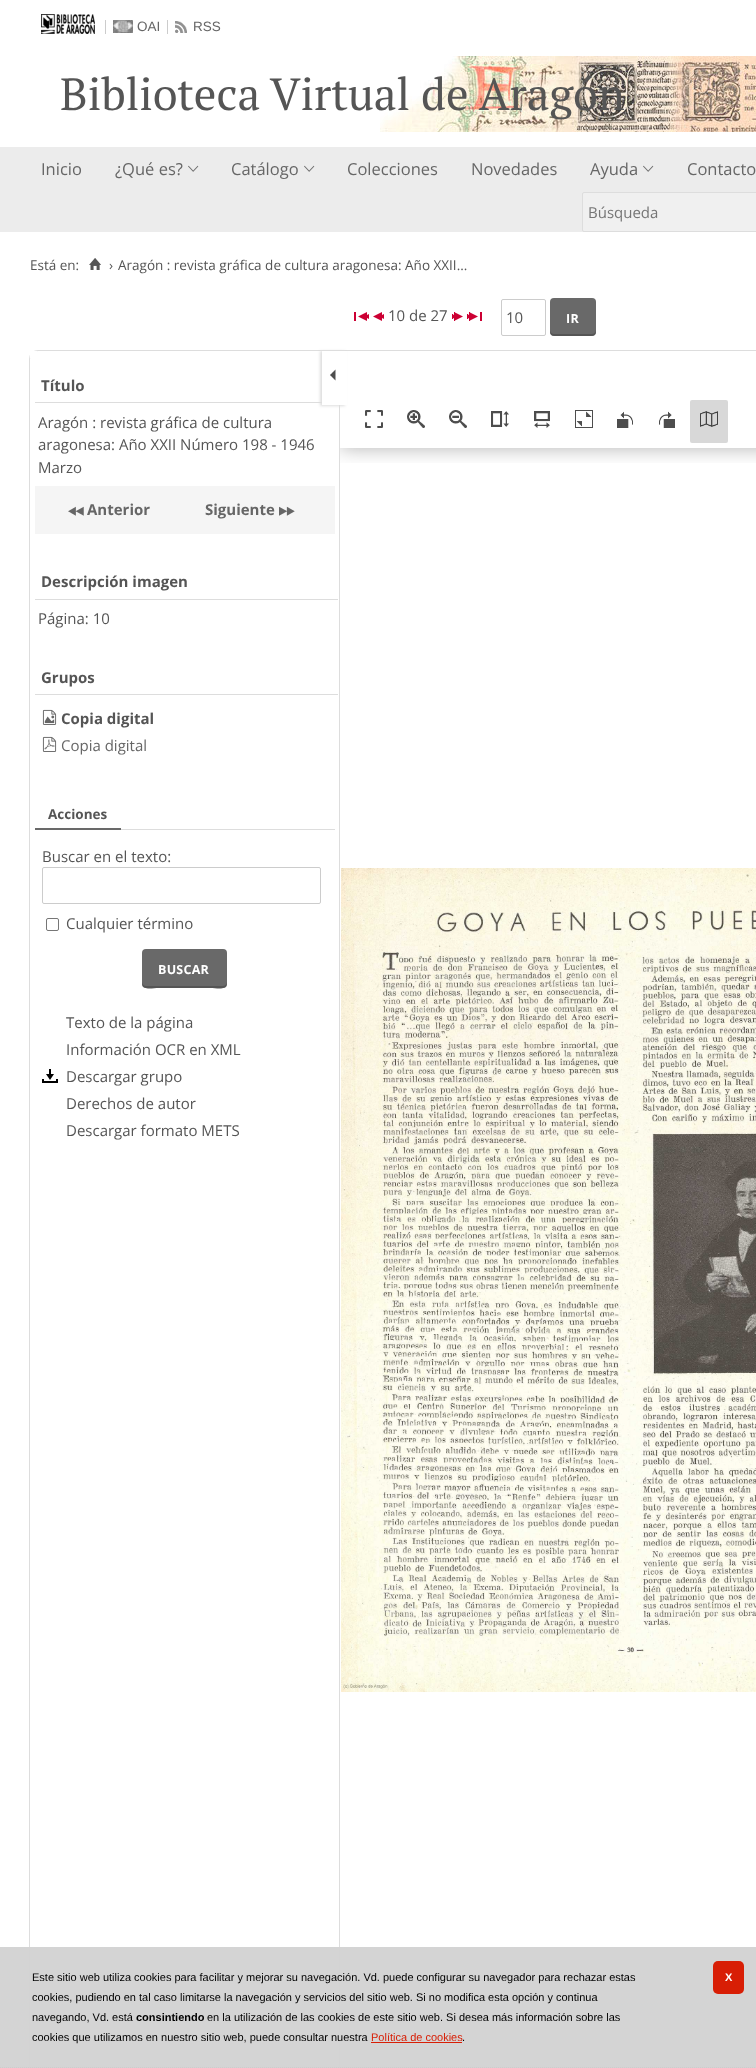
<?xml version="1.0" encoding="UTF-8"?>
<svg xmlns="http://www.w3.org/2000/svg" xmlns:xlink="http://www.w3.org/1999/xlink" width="756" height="2068">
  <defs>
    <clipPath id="clip1"><rect x="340" y="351" width="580" height="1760" /></clipPath>
    <clipPath id="clip2"><rect x="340" y="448" width="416" height="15" /></clipPath>
  </defs>
  <rect width="100%" height="100%" fill="#ffffff" />
  <image x="41" y="14" width="54" height="20" xlink:href="image1.png" />
  <rect x="105" y="20" width="1" height="14" fill="#cccccc" />
  <image x="113" y="20" width="20" height="13" xlink:href="image2.png" />
  <rect x="167" y="20" width="1" height="14" fill="#cccccc" />
  <image x="175" y="21" width="12" height="12" xlink:href="image3.png" />
  <image x="380" y="56" width="376" height="76" xlink:href="image4.png" />
  <rect y="147" width="756" height="85" fill="#ececec" />
  <image x="188" y="165" width="11" height="7" xlink:href="image5.png" />
  <image x="304" y="165" width="11" height="7" xlink:href="image5.png" />
  <image x="643" y="165" width="11" height="7" xlink:href="image5.png" />
  <rect x="582.5" y="192.5" width="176" height="39" rx="1.5" fill="#f0f0f0" stroke="#dddddd" />
  <image x="89" y="258" width="12" height="12" xlink:href="image6.png" />
  <image x="354" y="312" width="15" height="9" xlink:href="image7.png" />
  <image x="373" y="312" width="11" height="9" xlink:href="image8.png" />
  <image x="452" y="312" width="11" height="9" xlink:href="image9.png" />
  <image x="467" y="312" width="15" height="9" xlink:href="image10.png" />
  <rect x="501.5" y="299.5" width="44" height="36" rx="1.5" fill="none" stroke="#cccccc" />
  <rect x="550" y="298" width="46" height="38" rx="4" fill="#696969" />
  <path d="M 550 330 c 0 7 4 6 10 6 h 26 c 6 0 10 1 10 -6 c 0 2 -2 4 -4 4 h -38 c -2 0 -4 -2 -4 -4 z" fill="#555555" />
  <rect x="29.5" y="350.5" width="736" height="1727" rx="8.5" fill="none" stroke="#dddddd" />
  <rect x="30" y="351" width="7" height="7" fill="#ffffff" />
  <rect x="339" y="405" width="1" height="1663" fill="#dddddd" />
  <rect x="35" y="402" width="287" height="1" fill="#dddddd" />
  <rect x="35" y="486" width="300" height="48" fill="#f5f5f5" />
  <image x="68" y="506" width="16" height="10" xlink:href="image11.png" />
  <image x="279" y="506" width="16" height="10" xlink:href="image12.png" />
  <rect x="35" y="599" width="303" height="1" fill="#dddddd" />
  <rect x="35" y="694" width="303" height="1" fill="#dddddd" />
  <image x="42" y="709" width="15" height="16" xlink:href="image13.png" />
  <image x="42" y="736" width="15" height="16" xlink:href="image14.png" />
  <rect x="121" y="829" width="214" height="1" fill="#dddddd" />
  <rect x="35" y="828" width="86" height="2" fill="#696969" />
  <rect x="42.5" y="867.5" width="278" height="36" rx="1.5" fill="none" stroke="#cccccc" />
  <rect x="46.5" y="918.5" width="12" height="12" rx="1.5" fill="none" stroke="#767676" />
  <rect x="142" y="949" width="85" height="39" rx="4" fill="#696969" />
  <path d="M 142 982 c 0 9 9 6 17 6 h 51 c 8 0 17 3 17 -6 c 0 2 -2 4 -4 4 h -77 c -2 0 -4 -2 -4 -4 z" fill="#555555" />
  <image x="42" y="1069" width="16" height="14" xlink:href="image15.png" />
  <rect x="320" y="351" width="25" height="55" fill="#dddddd" filter="blur(1.5px)" />
  <rect x="322" y="351" width="25" height="54" fill="#ffffff" />
  <image x="330" y="369" width="6" height="12" xlink:href="image16.png" />
  <g clip-path="url(#clip1)">
    <g clip-path="url(#clip2)">
      <rect x="340" y="351" width="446" height="97" fill="#000000" fill-opacity="0.3" filter="blur(10px)" />
    </g>
  </g>
  <image x="365" y="410" width="18" height="18" xlink:href="image17.png" />
  <image x="407" y="410" width="18" height="18" xlink:href="image18.png" />
  <image x="449" y="410" width="18" height="18" xlink:href="image19.png" />
  <image x="491" y="411" width="18" height="16" xlink:href="image20.png" />
  <image x="534" y="411" width="16" height="17" xlink:href="image21.png" />
  <image x="575" y="410" width="18" height="18" xlink:href="image22.png" />
  <image x="617" y="411" width="16" height="17" xlink:href="image23.png" />
  <image x="659" y="411" width="16" height="17" xlink:href="image24.png" />
  <rect x="690" y="400" width="38" height="43" rx="2" fill="#d8d8d8" />
  <image x="700" y="411" width="18" height="16" xlink:href="image25.png" />
  <image x="341" y="868" width="415" height="824" xlink:href="image26.png" />
  <rect y="1947" width="756" height="121" fill="#d2d2d2" fill-opacity="0.95" />
  <path d="M 0 2067.5 h 756" fill="none" stroke="#cccccc" stroke-dasharray="1 1" />
  <rect x="371" y="2042" width="91" height="1" fill="#d81e05" />
  <rect x="713" y="1961" width="31" height="33" rx="5" fill="#d81e05" />
  <text x="137" y="31" style="font-family: Liberation Sans; font-size: 13.5px; fill: #666666">OAI</text>
  <text x="193" y="31" style="font-family: Liberation Sans; font-size: 13.5px; fill: #666666">RSS</text>
  <text x="60" y="110" style="font-family: PT Serif; font-size: 45px; fill: #555555">Biblioteca Virtual de Aragón</text>
  <text x="41" y="175" style="font-family: Open Sans; font-size: 16.5px; fill: #666666">Inicio</text>
  <text x="115" y="175" style="font-family: Open Sans; font-size: 16.5px; fill: #666666">¿Qué es?</text>
  <text x="231" y="175" style="font-family: Open Sans; font-size: 16.5px; fill: #666666">Catálogo</text>
  <text x="347" y="175" style="font-family: Open Sans; font-size: 16.5px; fill: #666666">Colecciones</text>
  <text x="471" y="175" style="font-family: Open Sans; font-size: 16.5px; fill: #666666">Novedades</text>
  <text x="590" y="175" style="font-family: Open Sans; font-size: 16.5px; fill: #666666">Ayuda</text>
  <text x="687" y="175" style="font-family: Open Sans; font-size: 16.5px; fill: #666666">Contacto</text>
  <text x="588" y="218" style="font-family: Open Sans; font-size: 15px; fill: #757575">Búsqueda</text>
  <text x="30" y="270" style="font-family: Open Sans; font-size: 13.5px; fill: #555555">Está en:</text>
  <text x="109" y="270" style="font-family: Open Sans; font-size: 13.5px; fill: #555555">›</text>
  <text x="118" y="270" style="font-family: Open Sans; font-size: 13.5px; fill: #555555">Aragón : revista gráfica de cultura aragonesa: Año XXII...</text>
  <text x="388" y="321" style="font-family: Open Sans; font-size: 15px; fill: #555555">10 de 27</text>
  <text x="506" y="323" style="font-family: Open Sans; font-size: 15px; fill: #555555">10</text>
  <text x="566" y="323" style="font-family: Open Sans; font-size: 12.5px; font-weight: bold; letter-spacing: 0.25px; fill: #ffffff">IR</text>
  <text x="41" y="391" style="font-family: Open Sans; font-size: 15px; font-weight: bold; fill: #555555">Título</text>
  <text x="38" y="428" style="font-family: Open Sans; font-size: 15px; fill: #555555">Aragón : revista gráfica de cultura</text>
  <text x="38" y="450" style="font-family: Open Sans; font-size: 15px; fill: #555555">aragonesa: Año XXII Número 198 - 1946</text>
  <text x="38" y="473" style="font-family: Open Sans; font-size: 15px; fill: #555555">Marzo</text>
  <text x="87" y="515" style="font-family: Open Sans; font-size: 15px; font-weight: bold; fill: #666666">Anterior</text>
  <text x="205" y="515" style="font-family: Open Sans; font-size: 15px; font-weight: bold; fill: #666666">Siguiente</text>
  <text x="41" y="587" style="font-family: Open Sans; font-size: 15px; font-weight: bold; fill: #555555">Descripción imagen</text>
  <text x="38" y="624" style="font-family: Open Sans; font-size: 15px; fill: #555555">Página: 10</text>
  <text x="41" y="683" style="font-family: Open Sans; font-size: 15px; font-weight: bold; fill: #555555">Grupos</text>
  <text x="61" y="724" style="font-family: Open Sans; font-size: 15px; font-weight: bold; fill: #555555">Copia digital</text>
  <text x="61" y="751" style="font-family: Open Sans; font-size: 15px; fill: #666666">Copia digital</text>
  <text x="48" y="819" style="font-family: Open Sans; font-size: 13.5px; font-weight: bold; fill: #555555">Acciones</text>
  <text x="42" y="862" style="font-family: Open Sans; font-size: 15px; fill: #555555">Buscar en el texto:</text>
  <text x="66" y="929" style="font-family: Open Sans; font-size: 15px; fill: #555555">Cualquier término</text>
  <text x="158" y="974" style="font-family: Open Sans; font-size: 12.5px; font-weight: bold; letter-spacing: 0.25px; fill: #ffffff">BUSCAR</text>
  <text x="66" y="1028" style="font-family: Open Sans; font-size: 15px; fill: #555555">Texto de la página</text>
  <text x="66" y="1055" style="font-family: Open Sans; font-size: 15px; fill: #555555">Información OCR en XML</text>
  <text x="66" y="1082" style="font-family: Open Sans; font-size: 15px; fill: #555555">Descargar grupo</text>
  <text x="66" y="1109" style="font-family: Open Sans; font-size: 15px; fill: #555555">Derechos de autor</text>
  <text x="66" y="1136" style="font-family: Open Sans; font-size: 15px; fill: #555555">Descargar formato METS</text>
  <text x="32" y="1981" style="font-family: Liberation Sans; font-size: 11px; fill: #000000">Este sitio web utiliza cookies para facilitar y mejorar su navegación. Vd. puede configurar su navegador para rechazar estas</text>
  <text x="32" y="2001" style="font-family: Liberation Sans; font-size: 11px; fill: #000000">cookies, pudiendo en tal caso limitarse la navegación y servicios del sitio web. Si no modifica esta opción y continua</text>
  <text x="32" y="2021" style="font-family: Liberation Sans; font-size: 11px; fill: #000000">navegando, Vd. está</text>
  <text x="136" y="2021" style="font-family: Liberation Sans; font-size: 11px; font-weight: bold; fill: #000000">consintiendo</text>
  <text x="207" y="2021" style="font-family: Liberation Sans; font-size: 11px; fill: #000000">en la utilización de las cookies de este sitio web. Si desea más información sobre las</text>
  <text x="32" y="2041" style="font-family: Liberation Sans; font-size: 11px; fill: #000000">cookies que utilizamos en nuestro sitio web, puede consultar nuestra</text>
  <text x="371" y="2041" style="font-family: Liberation Sans; font-size: 11px; fill: #d81e05">Política de cookies</text>
  <text x="462" y="2041" style="font-family: Liberation Sans; font-size: 11px; fill: #000000">.</text>
  <text x="725" y="1981" style="font-family: Liberation Sans; font-size: 11px; font-weight: bold; letter-spacing: -1px; fill: #ffffff">X</text>
</svg>
